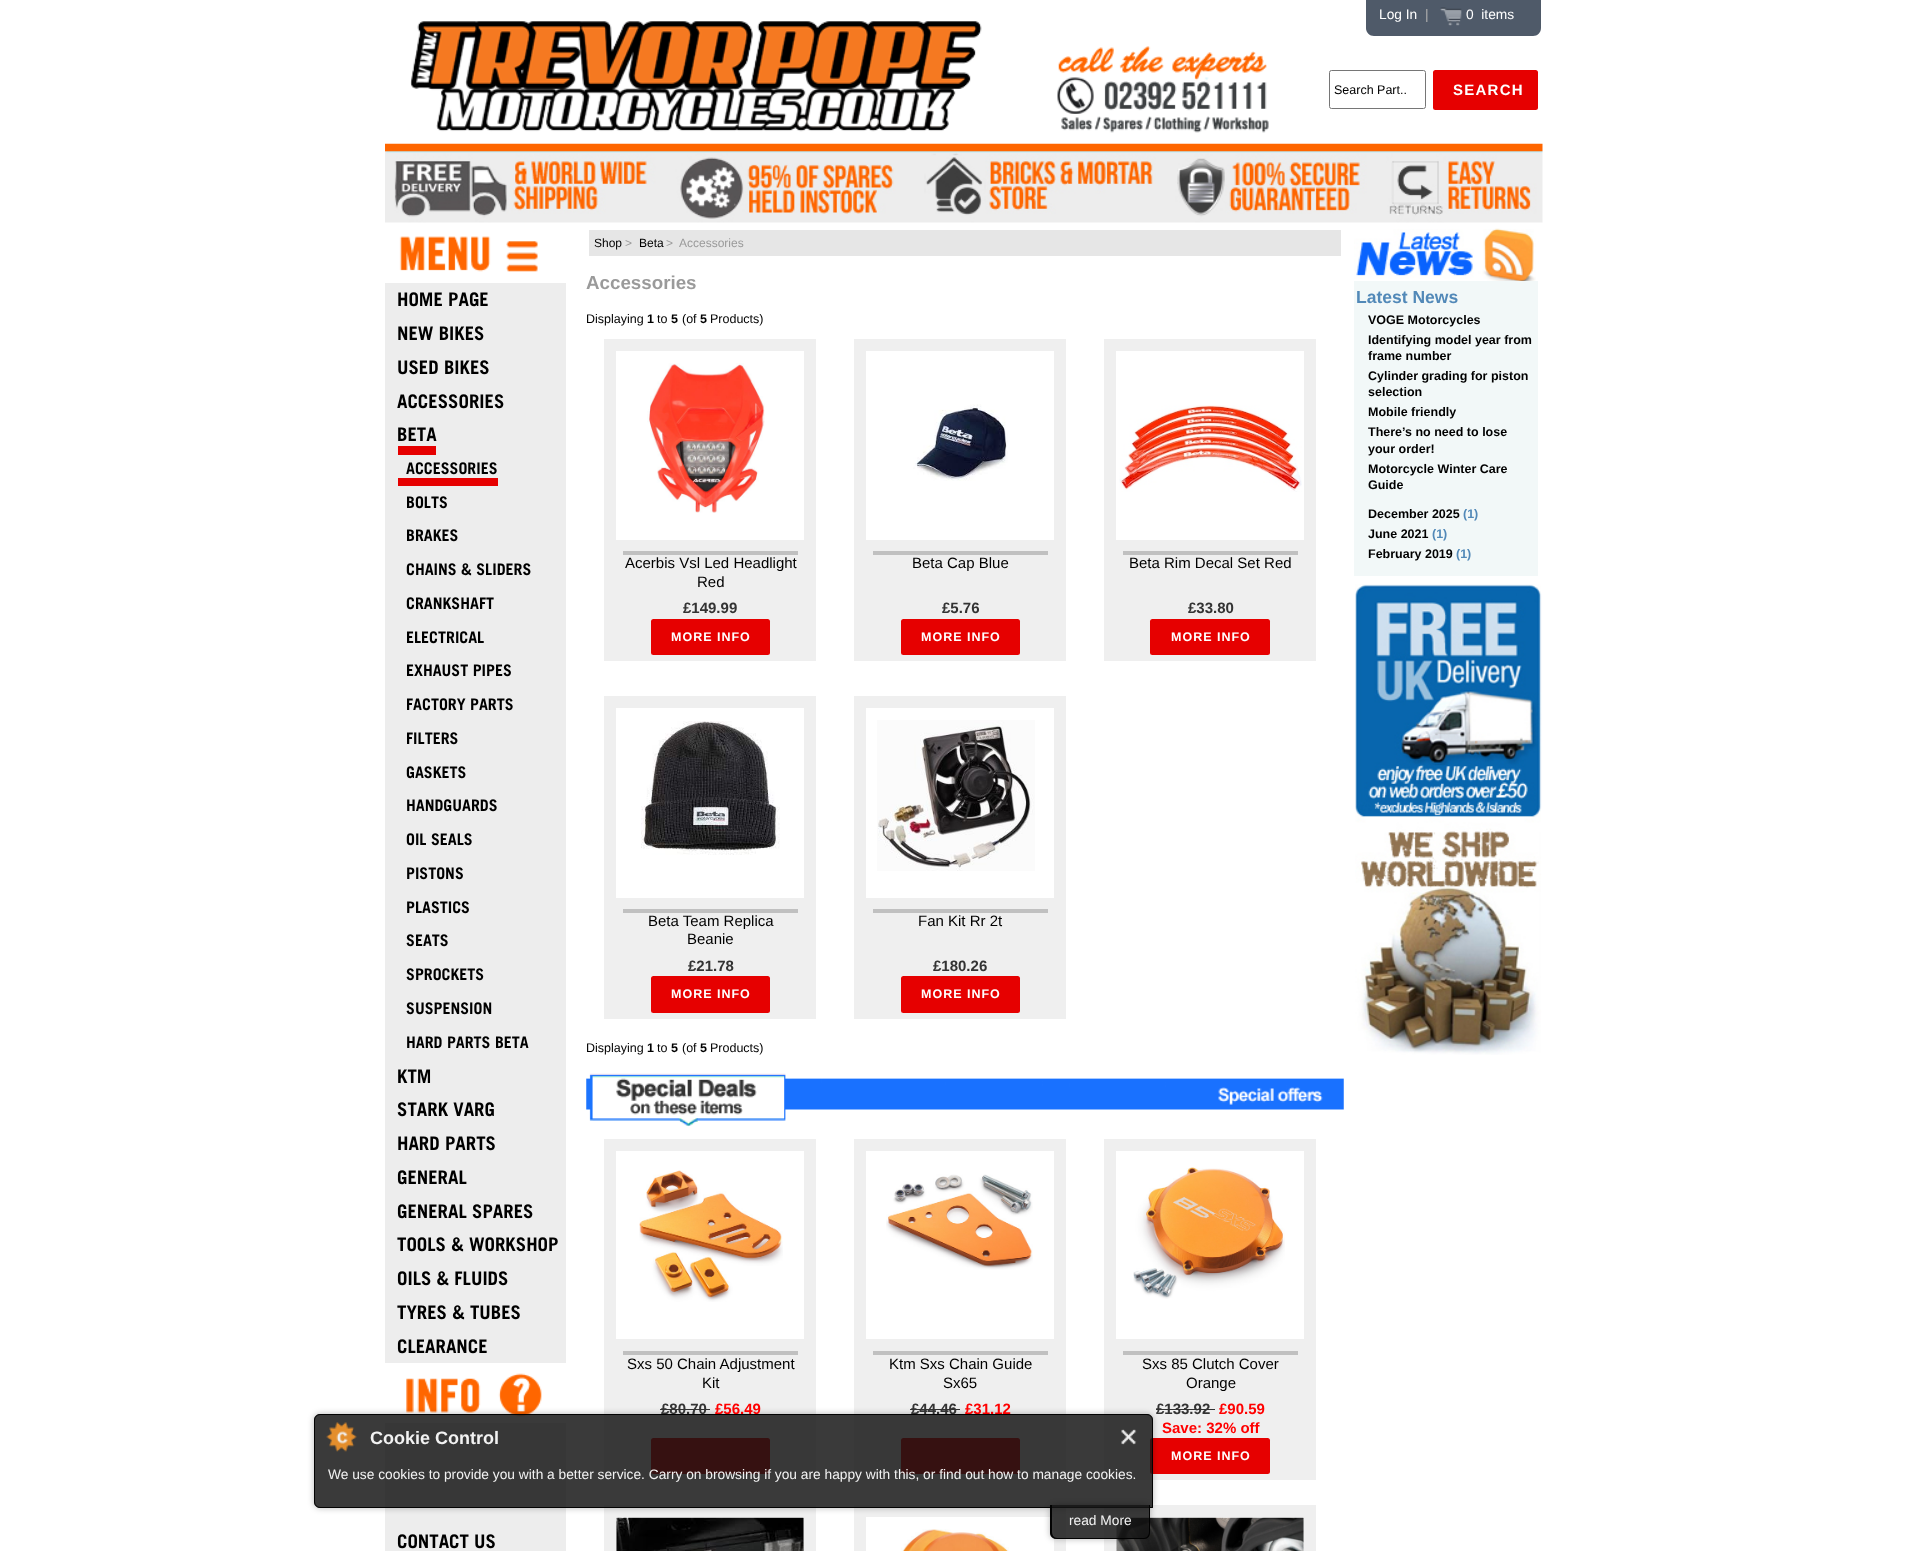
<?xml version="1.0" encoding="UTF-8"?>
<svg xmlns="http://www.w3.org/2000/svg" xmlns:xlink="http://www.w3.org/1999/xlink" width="1925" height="1551">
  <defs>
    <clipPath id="clip1"><path d="M 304 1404 h 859 v 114 h -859 z m 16 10 h 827 c 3.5 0 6 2.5 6 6 v 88 h -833 c -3.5 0 -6 -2.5 -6 -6 v -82 c 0 -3.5 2.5 -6 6 -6 z" clip-rule="evenodd" /></clipPath>
    <clipPath id="clip2"><path d="M 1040 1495 h 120 v 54 h -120 z m 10 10 h 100 v 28 c 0 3.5 -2.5 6 -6 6 h -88 c -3.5 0 -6 -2.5 -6 -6 z" clip-rule="evenodd" /></clipPath>
  </defs>
  <rect width="100%" height="100%" fill="#ffffff" />
  <path d="M 1366 0 h 175 v 28 c 0 4.5 -3.5 8 -8 8 h -159 c -4.5 0 -8 -3.5 -8 -8 z" fill="#4f5a69" />
  <image x="1440" y="7" width="22" height="19" xlink:href="image1.png" />
  <image x="410" y="21" width="572" height="111" xlink:href="image2.png" />
  <image x="1057" y="46" width="212" height="87" xlink:href="image3.png" />
  <rect x="1329.5" y="70.5" width="96" height="38" rx="2" fill="none" stroke="#767676" />
  <rect x="1433" y="70" width="105" height="40" rx="2.5" fill="#e60000" />
  <image x="385" y="143" width="1158" height="80" xlink:href="image4.png" />
  <image x="399" y="236" width="139" height="36" xlink:href="image5.png" />
  <rect x="385" y="283" width="181" height="1080" fill="#ededed" />
  <rect x="398" y="446" width="38" height="9" fill="#e60000" />
  <rect x="398" y="478" width="100" height="8" fill="#e60000" />
  <image x="406" y="1373" width="136" height="44" xlink:href="image6.png" />
  <rect x="385" y="1423" width="181" height="128" fill="#ededed" />
  <rect x="589" y="230" width="752" height="26" fill="#e6e6e6" />
  <rect x="604" y="339" width="212" height="322" fill="#efefef" />
  <rect x="616" y="351" width="188" height="189" fill="#ffffff" />
  <image x="647" y="363" width="118" height="150" xlink:href="image7.png" />
  <rect x="623" y="551" width="175" height="4" fill="#c0c0c0" />
  <rect x="651" y="619" width="119" height="36" rx="2.5" fill="#e60000" />
  <rect x="854" y="339" width="212" height="322" fill="#efefef" />
  <rect x="866" y="351" width="188" height="189" fill="#ffffff" />
  <image x="913" y="404" width="95" height="77" xlink:href="image8.png" />
  <rect x="873" y="551" width="175" height="4" fill="#c0c0c0" />
  <rect x="901" y="619" width="119" height="36" rx="2.5" fill="#e60000" />
  <rect x="1104" y="339" width="212" height="322" fill="#efefef" />
  <rect x="1116" y="351" width="188" height="189" fill="#ffffff" />
  <image x="1119" y="405" width="183" height="87" xlink:href="image9.png" />
  <rect x="1123" y="551" width="175" height="4" fill="#c0c0c0" />
  <rect x="1150" y="619" width="120" height="36" rx="2.5" fill="#e60000" />
  <rect x="604" y="696" width="212" height="323" fill="#efefef" />
  <rect x="616" y="708" width="188" height="190" fill="#ffffff" />
  <image x="641" y="721" width="139" height="134" xlink:href="image10.png" />
  <rect x="623" y="909" width="175" height="4" fill="#c0c0c0" />
  <rect x="651" y="976" width="119" height="37" rx="2.5" fill="#e60000" />
  <rect x="854" y="696" width="212" height="323" fill="#efefef" />
  <rect x="866" y="708" width="188" height="190" fill="#ffffff" />
  <image x="877" y="720" width="158" height="151" xlink:href="image11.png" />
  <rect x="873" y="909" width="175" height="4" fill="#c0c0c0" />
  <rect x="901" y="976" width="119" height="37" rx="2.5" fill="#e60000" />
  <image x="586" y="1073" width="758" height="54" xlink:href="image12.png" />
  <rect x="604" y="1139" width="212" height="341" fill="#efefef" />
  <rect x="616" y="1151" width="188" height="188" fill="#ffffff" />
  <image x="639" y="1170" width="144" height="132" xlink:href="image13.png" />
  <rect x="623" y="1351" width="175" height="4" fill="#c0c0c0" />
  <rect x="660" y="1409" width="50" height="1" fill="#333333" />
  <rect x="651" y="1438" width="119" height="36" rx="2.5" fill="#e60000" />
  <rect x="854" y="1139" width="212" height="341" fill="#efefef" />
  <rect x="866" y="1151" width="188" height="188" fill="#ffffff" />
  <image x="886" y="1174" width="147" height="96" xlink:href="image14.png" />
  <rect x="873" y="1351" width="175" height="4" fill="#c0c0c0" />
  <rect x="910" y="1409" width="50" height="1" fill="#333333" />
  <rect x="901" y="1438" width="119" height="36" rx="2.5" fill="#e60000" />
  <rect x="1104" y="1139" width="212" height="341" fill="#efefef" />
  <rect x="1116" y="1151" width="188" height="188" fill="#ffffff" />
  <image x="1133" y="1167" width="152" height="132" xlink:href="image15.png" />
  <rect x="1123" y="1351" width="175" height="4" fill="#c0c0c0" />
  <rect x="1156" y="1409" width="59" height="1" fill="#333333" />
  <rect x="1150" y="1438" width="120" height="36" rx="2.5" fill="#e60000" />
  <rect x="604" y="1505" width="212" height="46" fill="#efefef" />
  <rect x="616" y="1517" width="188" height="34" fill="#ffffff" />
  <image x="616" y="1517" width="188" height="34" xlink:href="image16.png" />
  <rect x="854" y="1505" width="212" height="46" fill="#efefef" />
  <rect x="866" y="1517" width="188" height="34" fill="#ffffff" />
  <image x="901" y="1529" width="108" height="22" xlink:href="image17.png" />
  <rect x="1104" y="1505" width="212" height="46" fill="#efefef" />
  <rect x="1116" y="1517" width="188" height="34" fill="#ffffff" />
  <image x="1116" y="1517" width="188" height="34" xlink:href="image18.png" />
  <image x="1354" y="228" width="182" height="53" xlink:href="image19.png" />
  <rect x="1354" y="281" width="184" height="295" fill="#f2f8f8" />
  <image x="1355" y="584" width="187" height="471" xlink:href="image20.png" />
  <g clip-path="url(#clip1)">
    <rect x="314" y="1414" width="839" height="94" rx="6" fill="#000000" fill-opacity="0.28" filter="blur(3px)" />
  </g>
  <text x="1379" y="19" style="font-family: Liberation Sans; font-size: 13.75px; fill: #ffffff">Log In</text>
  <text x="1425" y="19" style="font-family: Liberation Sans; font-size: 13.75px; fill: #afafaf">|</text>
  <text x="1466" y="19" style="font-family: Liberation Sans; font-size: 13.75px; fill: #ffffff" xml:space="preserve">0  items</text>
  <text x="1334" y="94" style="font-family: Liberation Sans; font-size: 12.5px; fill: #000000">Search Part..</text>
  <text x="1453" y="95" style="font-family: Liberation Sans; font-size: 15px; font-weight: bold; letter-spacing: 1.25px; fill: #ffffff">SEARCH</text>
  <text x="397" y="306" style="font-family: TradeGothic; font-size: 18.75px; font-weight: bold; fill: #000000">HOME PAGE</text>
  <text x="397" y="340" style="font-family: TradeGothic; font-size: 18.75px; font-weight: bold; fill: #000000">NEW BIKES</text>
  <text x="397" y="374" style="font-family: TradeGothic; font-size: 18.75px; font-weight: bold; fill: #000000">USED BIKES</text>
  <text x="397" y="408" style="font-family: TradeGothic; font-size: 18.75px; font-weight: bold; fill: #000000">ACCESSORIES</text>
  <text x="397" y="441" style="font-family: TradeGothic; font-size: 18.75px; font-weight: bold; fill: #000000">BETA</text>
  <text x="406" y="474" style="font-family: TradeGothic; font-size: 16px; font-weight: bold; fill: #000000">ACCESSORIES</text>
  <text x="406" y="508" style="font-family: TradeGothic; font-size: 16px; font-weight: bold; fill: #000000">BOLTS</text>
  <text x="406" y="541" style="font-family: TradeGothic; font-size: 16px; font-weight: bold; fill: #000000">BRAKES</text>
  <text x="406" y="575" style="font-family: TradeGothic; font-size: 16px; font-weight: bold; fill: #000000">CHAINS &amp; SLIDERS</text>
  <text x="406" y="609" style="font-family: TradeGothic; font-size: 16px; font-weight: bold; fill: #000000">CRANKSHAFT</text>
  <text x="406" y="643" style="font-family: TradeGothic; font-size: 16px; font-weight: bold; fill: #000000">ELECTRICAL</text>
  <text x="406" y="676" style="font-family: TradeGothic; font-size: 16px; font-weight: bold; fill: #000000">EXHAUST PIPES</text>
  <text x="406" y="710" style="font-family: TradeGothic; font-size: 16px; font-weight: bold; fill: #000000">FACTORY PARTS</text>
  <text x="406" y="744" style="font-family: TradeGothic; font-size: 16px; font-weight: bold; fill: #000000">FILTERS</text>
  <text x="406" y="778" style="font-family: TradeGothic; font-size: 16px; font-weight: bold; fill: #000000">GASKETS</text>
  <text x="406" y="811" style="font-family: TradeGothic; font-size: 16px; font-weight: bold; fill: #000000">HANDGUARDS</text>
  <text x="406" y="845" style="font-family: TradeGothic; font-size: 16px; font-weight: bold; fill: #000000">OIL SEALS</text>
  <text x="406" y="879" style="font-family: TradeGothic; font-size: 16px; font-weight: bold; fill: #000000">PISTONS</text>
  <text x="406" y="913" style="font-family: TradeGothic; font-size: 16px; font-weight: bold; fill: #000000">PLASTICS</text>
  <text x="406" y="946" style="font-family: TradeGothic; font-size: 16px; font-weight: bold; fill: #000000">SEATS</text>
  <text x="406" y="980" style="font-family: TradeGothic; font-size: 16px; font-weight: bold; fill: #000000">SPROCKETS</text>
  <text x="406" y="1014" style="font-family: TradeGothic; font-size: 16px; font-weight: bold; fill: #000000">SUSPENSION</text>
  <text x="406" y="1048" style="font-family: TradeGothic; font-size: 16px; font-weight: bold; fill: #000000">HARD PARTS BETA</text>
  <text x="397" y="1083" style="font-family: TradeGothic; font-size: 18.75px; font-weight: bold; fill: #000000">KTM</text>
  <text x="397" y="1116" style="font-family: TradeGothic; font-size: 18.75px; font-weight: bold; fill: #000000">STARK VARG</text>
  <text x="397" y="1150" style="font-family: TradeGothic; font-size: 18.75px; font-weight: bold; fill: #000000">HARD PARTS</text>
  <text x="397" y="1184" style="font-family: TradeGothic; font-size: 18.75px; font-weight: bold; fill: #000000">GENERAL</text>
  <text x="397" y="1218" style="font-family: TradeGothic; font-size: 18.75px; font-weight: bold; fill: #000000">GENERAL SPARES</text>
  <text x="397" y="1251" style="font-family: TradeGothic; font-size: 18.75px; font-weight: bold; fill: #000000">TOOLS &amp; WORKSHOP</text>
  <text x="397" y="1285" style="font-family: TradeGothic; font-size: 18.75px; font-weight: bold; fill: #000000">OILS &amp; FLUIDS</text>
  <text x="397" y="1319" style="font-family: TradeGothic; font-size: 18.75px; font-weight: bold; fill: #000000">TYRES &amp; TUBES</text>
  <text x="397" y="1353" style="font-family: TradeGothic; font-size: 18.75px; font-weight: bold; fill: #000000">CLEARANCE</text>
  <text x="397" y="1548" style="font-family: TradeGothic; font-size: 18.75px; font-weight: bold; fill: #000000">CONTACT US</text>
  <text x="594" y="247" style="font-family: Liberation Sans; font-size: 12px; fill: #000000">Shop</text>
  <text x="625" y="247" style="font-family: Liberation Sans; font-size: 12px; fill: #9a9a9a">&gt;</text>
  <text x="639" y="247" style="font-family: Liberation Sans; font-size: 12px; fill: #000000">Beta</text>
  <text x="666" y="247" style="font-family: Liberation Sans; font-size: 12px; fill: #9a9a9a" xml:space="preserve">&gt;  Accessories</text>
  <text x="586" y="289" style="font-family: Liberation Sans; font-size: 18.75px; font-weight: bold; fill: #9a9a9a">Accessories</text>
  <text x="586" y="323" style="font-family: Liberation Sans; font-size: 12.5px; fill: #000000">Displaying</text>
  <text x="647" y="323" style="font-family: Liberation Sans; font-size: 12.5px; font-weight: bold; fill: #000000">1</text>
  <text x="657" y="323" style="font-family: Liberation Sans; font-size: 12.5px; fill: #000000">to</text>
  <text x="671" y="323" style="font-family: Liberation Sans; font-size: 12.5px; font-weight: bold; fill: #000000">5</text>
  <text x="682" y="323" style="font-family: Liberation Sans; font-size: 12.5px; fill: #000000">(of</text>
  <text x="700" y="323" style="font-family: Liberation Sans; font-size: 12.5px; font-weight: bold; fill: #000000">5</text>
  <text x="710" y="323" style="font-family: Liberation Sans; font-size: 12.5px; fill: #000000">Products)</text>
  <text x="625" y="568" style="font-family: Liberation Sans; font-size: 15px; fill: #000000">Acerbis Vsl Led Headlight</text>
  <text x="697" y="587" style="font-family: Liberation Sans; font-size: 15px; fill: #000000">Red</text>
  <text x="683" y="613" style="font-family: Liberation Sans; font-size: 15px; font-weight: bold; fill: #333333">£149.99</text>
  <text x="671" y="641" style="font-family: Liberation Sans; font-size: 12.5px; font-weight: bold; letter-spacing: 1px; fill: #ffffff">MORE INFO</text>
  <text x="912" y="568" style="font-family: Liberation Sans; font-size: 15px; fill: #000000">Beta Cap Blue</text>
  <text x="942" y="613" style="font-family: Liberation Sans; font-size: 15px; font-weight: bold; fill: #333333">£5.76</text>
  <text x="921" y="641" style="font-family: Liberation Sans; font-size: 12.5px; font-weight: bold; letter-spacing: 1px; fill: #ffffff">MORE INFO</text>
  <text x="1129" y="568" style="font-family: Liberation Sans; font-size: 15px; fill: #000000">Beta Rim Decal Set Red</text>
  <text x="1188" y="613" style="font-family: Liberation Sans; font-size: 15px; font-weight: bold; fill: #333333">£33.80</text>
  <text x="1171" y="641" style="font-family: Liberation Sans; font-size: 12.5px; font-weight: bold; letter-spacing: 1px; fill: #ffffff">MORE INFO</text>
  <text x="648" y="926" style="font-family: Liberation Sans; font-size: 15px; fill: #000000">Beta Team Replica</text>
  <text x="687" y="944" style="font-family: Liberation Sans; font-size: 15px; fill: #000000">Beanie</text>
  <text x="688" y="971" style="font-family: Liberation Sans; font-size: 15px; font-weight: bold; fill: #333333">£21.78</text>
  <text x="671" y="998" style="font-family: Liberation Sans; font-size: 12.5px; font-weight: bold; letter-spacing: 1px; fill: #ffffff">MORE INFO</text>
  <text x="918" y="926" style="font-family: Liberation Sans; font-size: 15px; fill: #000000">Fan Kit Rr 2t</text>
  <text x="933" y="971" style="font-family: Liberation Sans; font-size: 15px; font-weight: bold; fill: #333333">£180.26</text>
  <text x="921" y="998" style="font-family: Liberation Sans; font-size: 12.5px; font-weight: bold; letter-spacing: 1px; fill: #ffffff">MORE INFO</text>
  <text x="586" y="1052" style="font-family: Liberation Sans; font-size: 12.5px; fill: #000000">Displaying</text>
  <text x="647" y="1052" style="font-family: Liberation Sans; font-size: 12.5px; font-weight: bold; fill: #000000">1</text>
  <text x="657" y="1052" style="font-family: Liberation Sans; font-size: 12.5px; fill: #000000">to</text>
  <text x="671" y="1052" style="font-family: Liberation Sans; font-size: 12.5px; font-weight: bold; fill: #000000">5</text>
  <text x="682" y="1052" style="font-family: Liberation Sans; font-size: 12.5px; fill: #000000">(of</text>
  <text x="700" y="1052" style="font-family: Liberation Sans; font-size: 12.5px; font-weight: bold; fill: #000000">5</text>
  <text x="710" y="1052" style="font-family: Liberation Sans; font-size: 12.5px; fill: #000000">Products)</text>
  <text x="627" y="1369" style="font-family: Liberation Sans; font-size: 15px; fill: #000000">Sxs 50 Chain Adjustment</text>
  <text x="702" y="1388" style="font-family: Liberation Sans; font-size: 15px; fill: #000000">Kit</text>
  <text x="661" y="1414" style="font-family: Liberation Sans; font-size: 15px; font-weight: bold; fill: #333333">£80.70</text>
  <text x="715" y="1414" style="font-family: Liberation Sans; font-size: 15px; font-weight: bold; fill: #ff0000">£56.49</text>
  <text x="889" y="1369" style="font-family: Liberation Sans; font-size: 15px; fill: #000000">Ktm Sxs Chain Guide</text>
  <text x="943" y="1388" style="font-family: Liberation Sans; font-size: 15px; fill: #000000">Sx65</text>
  <text x="911" y="1414" style="font-family: Liberation Sans; font-size: 15px; font-weight: bold; fill: #333333">£44.46</text>
  <text x="965" y="1414" style="font-family: Liberation Sans; font-size: 15px; font-weight: bold; fill: #ff0000">£31.12</text>
  <text x="1142" y="1369" style="font-family: Liberation Sans; font-size: 15px; fill: #000000">Sxs 85 Clutch Cover</text>
  <text x="1186" y="1388" style="font-family: Liberation Sans; font-size: 15px; fill: #000000">Orange</text>
  <text x="1156" y="1414" style="font-family: Liberation Sans; font-size: 15px; font-weight: bold; fill: #333333">£133.92</text>
  <text x="1219" y="1414" style="font-family: Liberation Sans; font-size: 15px; font-weight: bold; fill: #ff0000">£90.59</text>
  <text x="1162" y="1433" style="font-family: Liberation Sans; font-size: 15px; font-weight: bold; fill: #ff0000">Save: 32% off</text>
  <text x="1171" y="1460" style="font-family: Liberation Sans; font-size: 12.5px; font-weight: bold; letter-spacing: 1px; fill: #ffffff">MORE INFO</text>
  <text x="1356" y="303" style="font-family: Liberation Sans; font-size: 17.5px; font-weight: bold; fill: #5289b8">Latest News</text>
  <text x="1368" y="324" style="font-family: Liberation Sans; font-size: 12.5px; font-weight: bold; fill: #000000">VOGE Motorcycles</text>
  <text x="1368" y="344" style="font-family: Liberation Sans; font-size: 12.5px; font-weight: bold; fill: #000000">Identifying model year from</text>
  <text x="1368" y="360" style="font-family: Liberation Sans; font-size: 12.5px; font-weight: bold; fill: #000000">frame number</text>
  <text x="1368" y="380" style="font-family: Liberation Sans; font-size: 12.5px; font-weight: bold; fill: #000000">Cylinder grading for piston</text>
  <text x="1368" y="396" style="font-family: Liberation Sans; font-size: 12.5px; font-weight: bold; fill: #000000">selection</text>
  <text x="1368" y="416" style="font-family: Liberation Sans; font-size: 12.5px; font-weight: bold; fill: #000000">Mobile friendly</text>
  <text x="1368" y="436" style="font-family: Liberation Sans; font-size: 12.5px; font-weight: bold; fill: #000000">There’s no need to lose</text>
  <text x="1368" y="453" style="font-family: Liberation Sans; font-size: 12.5px; font-weight: bold; fill: #000000">your order!</text>
  <text x="1368" y="473" style="font-family: Liberation Sans; font-size: 12.5px; font-weight: bold; fill: #000000">Motorcycle Winter Care</text>
  <text x="1368" y="489" style="font-family: Liberation Sans; font-size: 12.5px; font-weight: bold; fill: #000000">Guide</text>
  <text x="1368" y="518" style="font-family: Liberation Sans; font-size: 12.5px; font-weight: bold; fill: #000000">December 2025</text>
  <text x="1463" y="518" style="font-family: Liberation Sans; font-size: 12.5px; font-weight: bold; fill: #5289b8">(1)</text>
  <text x="1368" y="538" style="font-family: Liberation Sans; font-size: 12.5px; font-weight: bold; fill: #000000">June 2021</text>
  <text x="1432" y="538" style="font-family: Liberation Sans; font-size: 12.5px; font-weight: bold; fill: #5289b8">(1)</text>
  <text x="1368" y="558" style="font-family: Liberation Sans; font-size: 12.5px; font-weight: bold; fill: #000000">February 2019</text>
  <text x="1456" y="558" style="font-family: Liberation Sans; font-size: 12.5px; font-weight: bold; fill: #5289b8">(1)</text>
  <path d="M 320 1414 h 827 c 3.5 0 6 2.5 6 6 v 88 h -833 c -3.5 0 -6 -2.5 -6 -6 v -82 c 0 -3.5 2.5 -6 6 -6 z" fill="#141414" fill-opacity="0.84" />
  <path d="M 320 1414.5 h 827 c 3 0 5.5 2.5 5.5 5.5 v 87.5 h -832.5 c -3 0 -5.5 -2.5 -5.5 -5.5 v -82 c 0 -3 2.5 -5.5 5.5 -5.5 z" fill="none" stroke="#000000" stroke-opacity="0.94" />
  <image x="326" y="1422" width="31" height="30" xlink:href="image21.png" />
  <text x="370" y="1444" style="font-family: Liberation Sans; font-size: 18px; font-weight: bold; fill: #f2f2f2">Cookie Control</text>
  <image x="1121" y="1429" width="16" height="16" xlink:href="image22.png" />
  <text x="328" y="1479" style="font-family: Liberation Sans; font-size: 13.75px; fill: #f2f2f2">We use cookies to provide you with a better service. Carry on browsing if you are happy with this, or find out how to manage cookies.</text>
  <g clip-path="url(#clip2)">
    <rect x="1050" y="1505" width="100" height="34" rx="6" fill="#000000" fill-opacity="0.28" filter="blur(3px)" />
  </g>
  <path d="M 1050 1505 h 100 v 28 c 0 3.5 -2.5 6 -6 6 h -88 c -3.5 0 -6 -2.5 -6 -6 z" fill="#141414" fill-opacity="0.84" />
  <path d="M 1050 1505 h 100 v 27 c 0 4 -2 7 -6 7 h -87 c -4 0 -7 -3 -7 -7 z m 2 0 h 97 v 27 c 0 3 -2 6 -5 6 h -87 c -3 0 -5 -3 -5 -6 z" fill="#000000" fill-opacity="0.94" fill-rule="evenodd" />
  <text x="1069" y="1525" style="font-family: Liberation Sans; font-size: 13.75px; fill: #f2f2f2">read More</text>
</svg>
